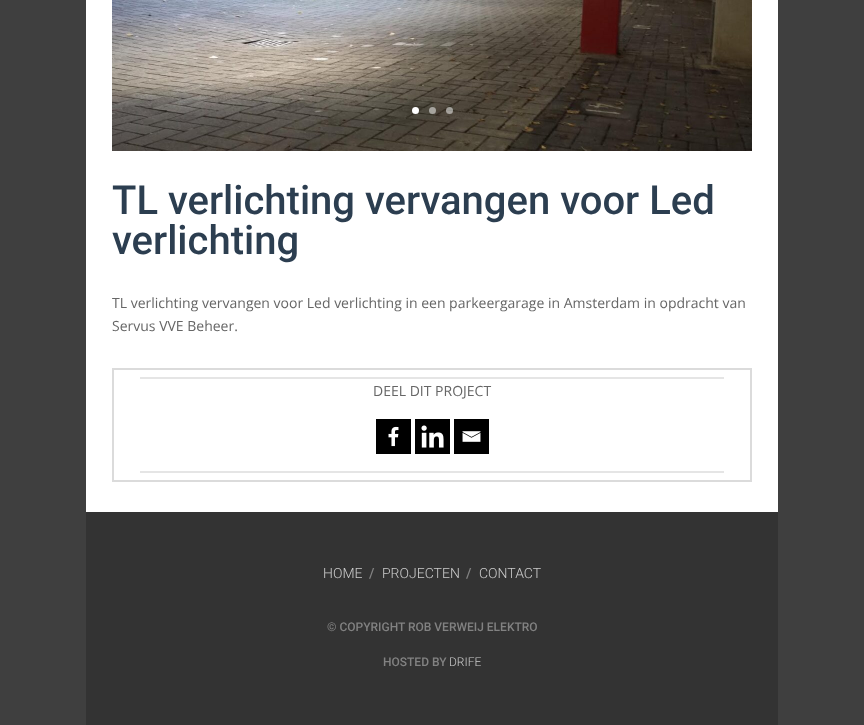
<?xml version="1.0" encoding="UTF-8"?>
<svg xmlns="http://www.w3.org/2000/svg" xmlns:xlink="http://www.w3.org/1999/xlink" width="864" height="725">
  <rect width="100%" height="100%" fill="#3f3f3f" />
  <rect x="86" width="692" height="512" fill="#ffffff" />
  <image x="112" y="0" width="640" height="151" xlink:href="image1.png" />
  <circle cx="415.5" cy="110.5" r="3.5" fill="#ffffff" />
  <circle cx="432.5" cy="110.5" r="3.5" fill="#ffffff" fill-opacity="0.5" />
  <circle cx="449.5" cy="110.5" r="3.5" fill="#ffffff" fill-opacity="0.5" />
  <rect x="113" y="369" width="638" height="112" fill="none" stroke="#dbdbdb" stroke-width="2" />
  <rect x="140" y="377" width="584" height="2" fill="#e5e5e5" />
  <rect x="140" y="471" width="584" height="2" fill="#e5e5e5" />
  <rect x="376" y="419" width="35" height="35" fill="#000000" />
  <image x="388" y="426" width="11" height="21" xlink:href="image2.png" />
  <rect x="415" y="419" width="35" height="35" fill="#000000" />
  <image x="421" y="425" width="23" height="23" xlink:href="image3.png" />
  <rect x="454" y="419" width="35" height="35" fill="#000000" />
  <image x="462" y="431" width="19" height="11" xlink:href="image4.png" />
  <rect x="86" y="512" width="692" height="213" fill="#333333" />
  <text x="112" y="214" style="font-family: Roboto; font-size: 40px; font-weight: 500; fill: #2c3e50">TL verlichting vervangen voor Led</text>
  <text x="112" y="254" style="font-family: Roboto; font-size: 40px; font-weight: 500; fill: #2c3e50">verlichting</text>
  <text x="112" y="308" style="font-family: Open Sans; font-size: 14px; fill: #666666">TL verlichting vervangen voor Led verlichting in een parkeergarage in Amsterdam in opdracht van</text>
  <text x="112" y="331" style="font-family: Open Sans; font-size: 14px; fill: #666666">Servus VVE Beheer.</text>
  <text x="373" y="396" style="font-family: Open Sans; font-size: 14px; fill: #666666">DEEL DIT PROJECT</text>
  <text x="323" y="578" style="font-family: Roboto; font-size: 14px; font-weight: 300; fill: #cccccc">HOME</text>
  <text x="369" y="578" style="font-family: Roboto; font-size: 14px; font-weight: 500; fill: #828282">/</text>
  <text x="382" y="578" style="font-family: Roboto; font-size: 14px; font-weight: 300; fill: #cccccc">PROJECTEN</text>
  <text x="466" y="578" style="font-family: Roboto; font-size: 14px; font-weight: 500; fill: #828282">/</text>
  <text x="479" y="578" style="font-family: Roboto; font-size: 14px; font-weight: 300; fill: #cccccc">CONTACT</text>
  <text x="327" y="631" style="font-family: Roboto; font-size: 12px; font-weight: 500; fill: #828282">© COPYRIGHT ROB VERWEIJ ELEKTRO</text>
  <text x="383" y="666" style="font-family: Roboto; font-size: 12px; font-weight: 500; fill: #828282">HOSTED BY</text>
  <text x="449" y="666" style="font-family: Roboto; font-size: 12px; font-weight: 300; fill: #cccccc">DRIFE</text>
</svg>
